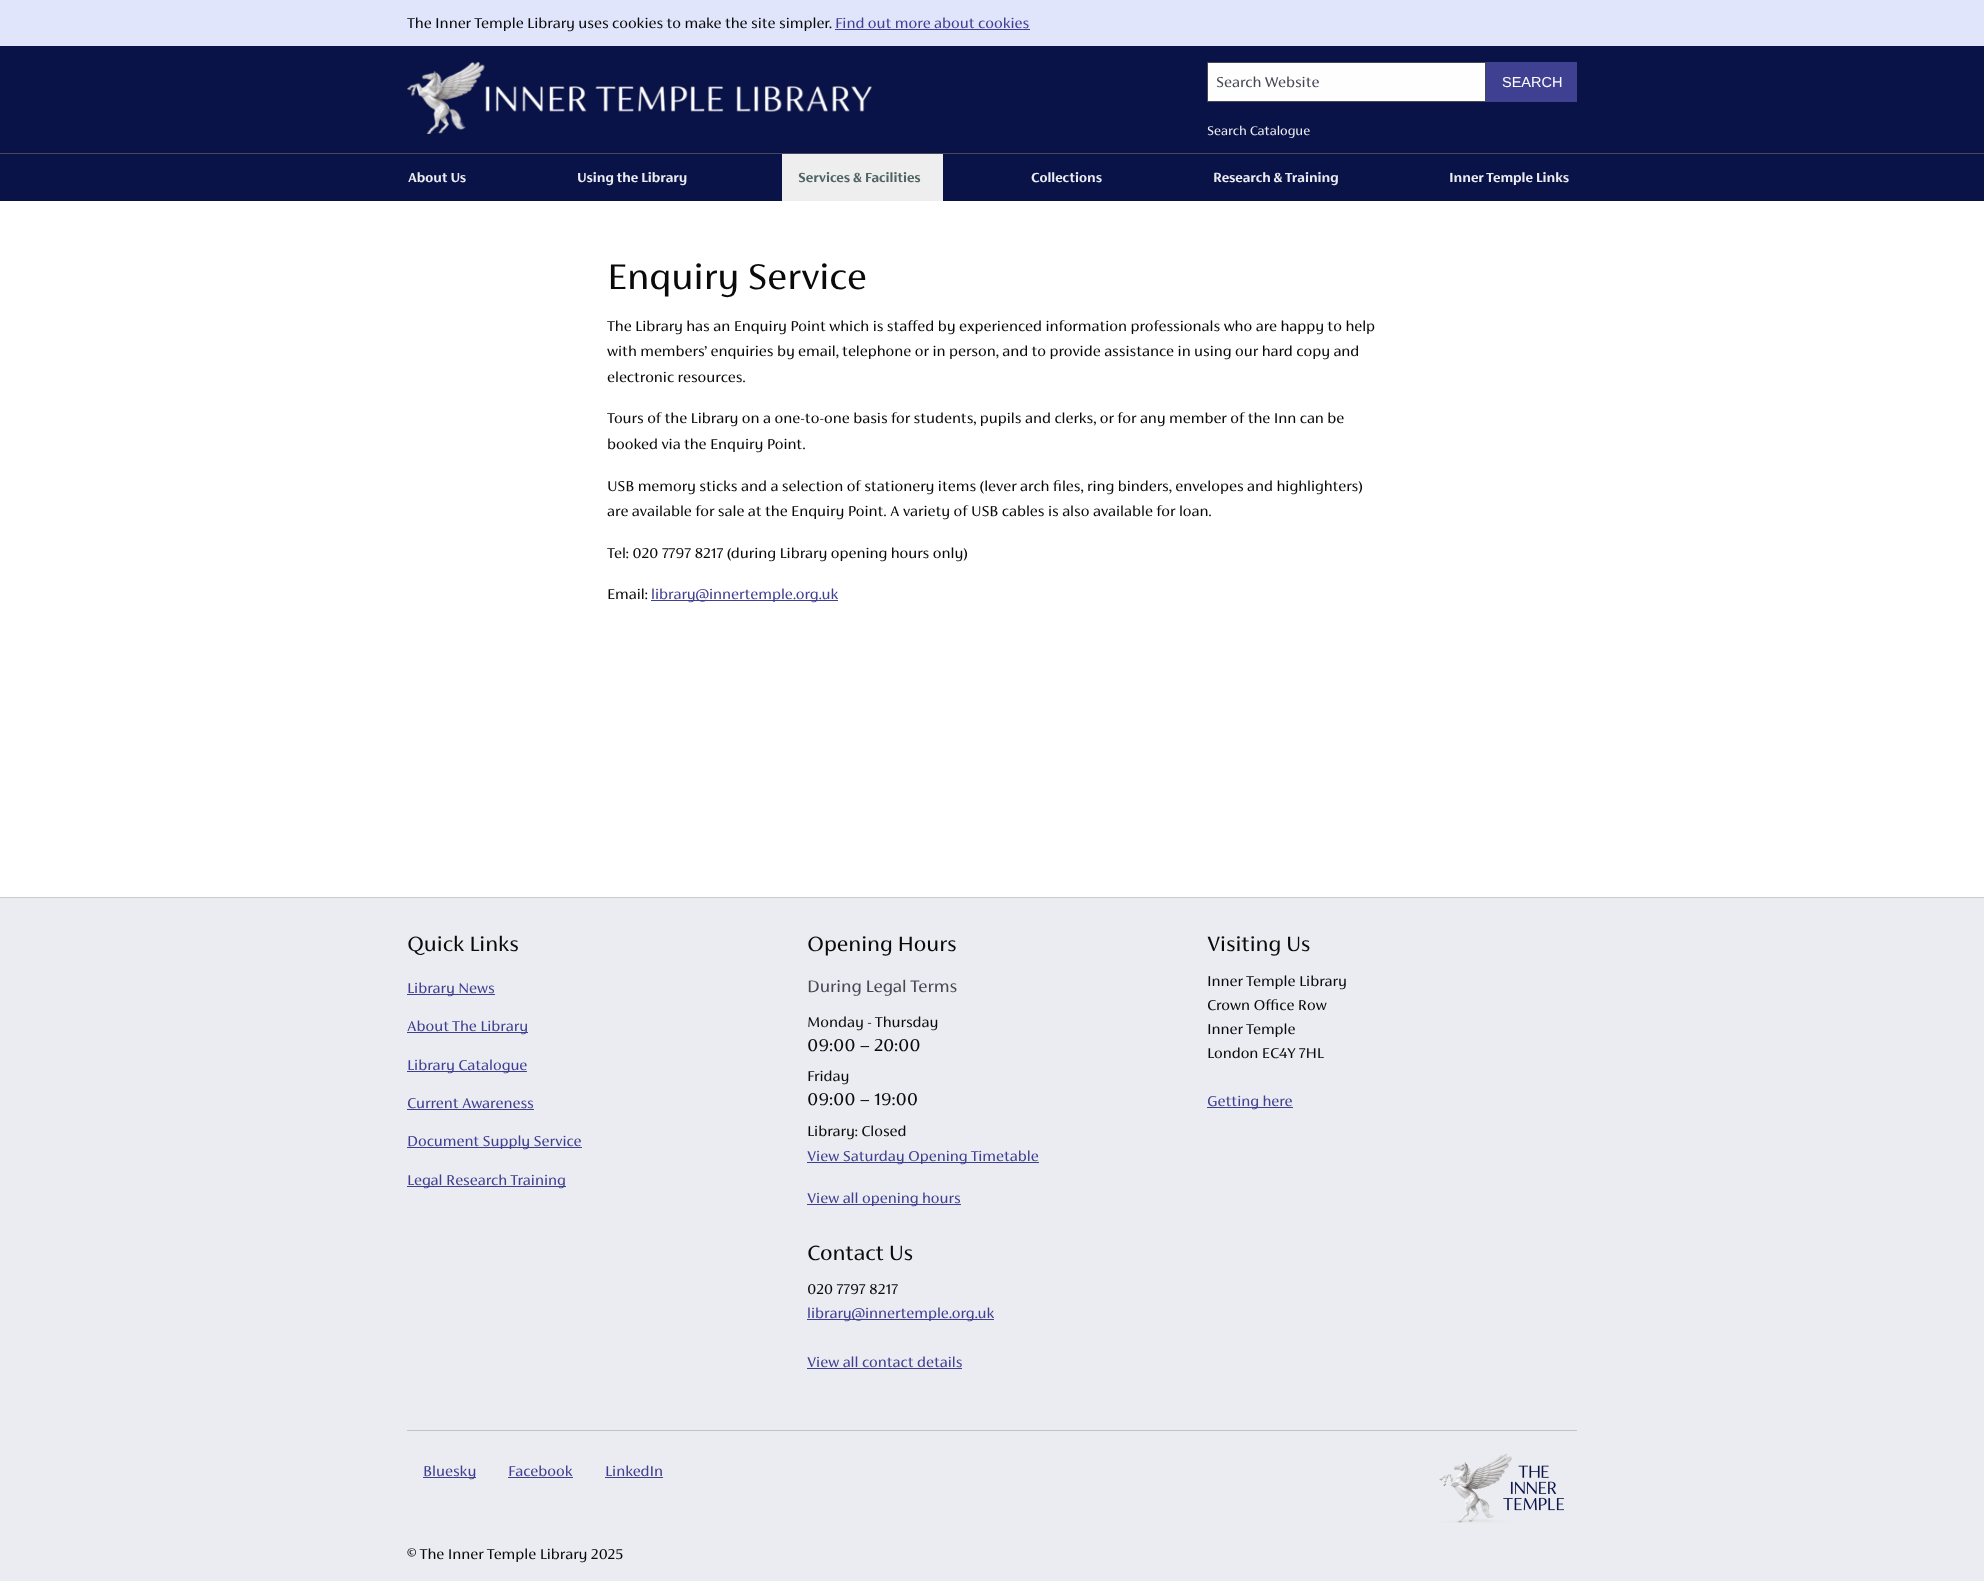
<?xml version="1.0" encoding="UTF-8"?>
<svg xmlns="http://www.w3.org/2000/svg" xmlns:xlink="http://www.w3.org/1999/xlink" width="1984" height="1581">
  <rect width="100%" height="100%" fill="#ffffff" />
  <rect width="1984" height="46" fill="#e1e5fb" />
  <rect x="835" y="29" width="195" height="1" fill="#404092" />
  <rect y="46" width="1984" height="155" fill="#0a1347" />
  <image x="407" y="62" width="465" height="72" xlink:href="image1.png" />
  <rect x="1207.5" y="62.5" width="278" height="39" fill="#fefefe" stroke="#464853" />
  <rect x="1486" y="62" width="91" height="40" fill="#404092" />
  <rect y="153" width="1984" height="1" fill="#464853" />
  <rect x="782" y="154" width="161" height="47" fill="#eeeeee" />
  <rect x="651" y="600" width="187" height="1" fill="#404092" />
  <rect y="898" width="1984" height="683" fill="#ebecf1" />
  <rect y="897" width="1984" height="1" fill="#cccccc" />
  <rect x="407" y="994" width="88" height="1" fill="#404092" />
  <rect x="407" y="1032" width="121" height="1" fill="#404092" />
  <rect x="407" y="1071" width="120" height="1" fill="#404092" />
  <rect x="407" y="1109" width="127" height="1" fill="#404092" />
  <rect x="407" y="1147" width="175" height="1" fill="#404092" />
  <rect x="407" y="1186" width="159" height="1" fill="#404092" />
  <rect x="807" y="1162" width="232" height="1" fill="#404092" />
  <rect x="807" y="1204" width="154" height="1" fill="#404092" />
  <rect x="807" y="1319" width="187" height="1" fill="#404092" />
  <rect x="807" y="1368" width="155" height="1" fill="#404092" />
  <rect x="1207" y="1107" width="86" height="1" fill="#404092" />
  <rect x="407" y="1430" width="1170" height="1" fill="#c0c2c4" />
  <rect x="423" y="1477" width="53" height="1" fill="#404092" />
  <rect x="508" y="1477" width="65" height="1" fill="#404092" />
  <rect x="605" y="1477" width="58" height="1" fill="#404092" />
  <image x="1439" y="1453" width="125" height="70" xlink:href="image2.png" />
  <text x="407" y="28" style="font-family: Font; font-size: 16px; fill: #0a0a0a">The Inner Temple Library uses cookies to make the site simpler.</text>
  <text x="835" y="28" style="font-family: Font; font-size: 16px; fill: #404092">Find out more about cookies</text>
  <text x="1216" y="87" style="font-family: Font; font-size: 16px; fill: #464853">Search Website</text>
  <text x="1502" y="87" style="font-family: Liberation Sans; font-size: 14.5px; fill: #fefefe">SEARCH</text>
  <text x="1207" y="135" style="font-family: Font; font-size: 14px; fill: #ebecf1">Search Catalogue</text>
  <text x="408" y="182" style="font-family: Font; font-size: 14.5px; font-weight: bold; fill: #ebecf1">About Us</text>
  <text x="577" y="182" style="font-family: Font; font-size: 14.5px; font-weight: bold; fill: #ebecf1">Using the Library</text>
  <text x="798" y="182" style="font-family: Font; font-size: 14.5px; font-weight: bold; fill: #4f6563">Services &amp; Facilities</text>
  <text x="1031" y="182" style="font-family: Font; font-size: 14.5px; font-weight: bold; fill: #ebecf1">Collections</text>
  <text x="1213" y="182" style="font-family: Font; font-size: 14.5px; font-weight: bold; fill: #ebecf1">Research &amp; Training</text>
  <text x="1449" y="182" style="font-family: Font; font-size: 14.5px; font-weight: bold; fill: #ebecf1">Inner Temple Links</text>
  <text x="607" y="289" style="font-family: Font; font-size: 39.75px; fill: #0a0a0a">Enquiry Service</text>
  <text x="607" y="331" style="font-family: Font; font-size: 16px; fill: #0a0a0a">The Library has an Enquiry Point which is staffed by experienced information professionals who are happy to help</text>
  <text x="607" y="356" style="font-family: Font; font-size: 16px; fill: #0a0a0a">with members’ enquiries by email, telephone or in person, and to provide assistance in using our hard copy and</text>
  <text x="607" y="382" style="font-family: Font; font-size: 16px; fill: #0a0a0a">electronic resources.</text>
  <text x="607" y="423" style="font-family: Font; font-size: 16px; fill: #0a0a0a">Tours of the Library on a one-to-one basis for students, pupils and clerks, or for any member of the Inn can be</text>
  <text x="607" y="449" style="font-family: Font; font-size: 16px; fill: #0a0a0a">booked via the Enquiry Point.</text>
  <text x="607" y="491" style="font-family: Font; font-size: 16px; fill: #0a0a0a">USB memory sticks and a selection of stationery items (lever arch files, ring binders, envelopes and highlighters)</text>
  <text x="607" y="516" style="font-family: Font; font-size: 16px; fill: #0a0a0a">are available for sale at the Enquiry Point. A variety of USB cables is also available for loan.</text>
  <text x="607" y="558" style="font-family: Font; font-size: 16px; fill: #0a0a0a">Tel: 020 7797 8217 (during Library opening hours only)</text>
  <text x="607" y="599" style="font-family: Font; font-size: 16px; fill: #0a0a0a">Email:</text>
  <text x="651" y="599" style="font-family: Font; font-size: 16px; fill: #404092">library@innertemple.org.uk</text>
  <text x="407" y="951" style="font-family: Font; font-size: 23px; fill: #0a0a0a">Quick Links</text>
  <text x="407" y="993" style="font-family: Font; font-size: 16px; fill: #404092">Library News</text>
  <text x="407" y="1031" style="font-family: Font; font-size: 16px; fill: #404092">About The Library</text>
  <text x="407" y="1070" style="font-family: Font; font-size: 16px; fill: #404092">Library Catalogue</text>
  <text x="407" y="1108" style="font-family: Font; font-size: 16px; fill: #404092">Current Awareness</text>
  <text x="407" y="1146" style="font-family: Font; font-size: 16px; fill: #404092">Document Supply Service</text>
  <text x="407" y="1185" style="font-family: Font; font-size: 16px; fill: #404092">Legal Research Training</text>
  <text x="807" y="951" style="font-family: Font; font-size: 23px; fill: #0a0a0a">Opening Hours</text>
  <text x="807" y="992" style="font-family: Font; font-size: 18.5px; fill: #464853">During Legal Terms</text>
  <text x="807" y="1027" style="font-family: Font; font-size: 16px; fill: #0a0a0a">Monday - Thursday</text>
  <text x="807" y="1051" style="font-family: Font; font-size: 19.25px; fill: #0a0a0a">09:00 – 20:00</text>
  <text x="807" y="1081" style="font-family: Font; font-size: 16px; fill: #0a0a0a">Friday</text>
  <text x="807" y="1105" style="font-family: Font; font-size: 19.25px; fill: #0a0a0a">09:00 – 19:00</text>
  <text x="807" y="1136" style="font-family: Font; font-size: 16px; fill: #0a0a0a">Library: Closed</text>
  <text x="807" y="1161" style="font-family: Font; font-size: 16px; fill: #404092">View Saturday Opening Timetable</text>
  <text x="807" y="1203" style="font-family: Font; font-size: 16px; fill: #404092">View all opening hours</text>
  <text x="807" y="1260" style="font-family: Font; font-size: 23px; fill: #0a0a0a">Contact Us</text>
  <text x="807" y="1294" style="font-family: Font; font-size: 16px; fill: #0a0a0a">020 7797 8217</text>
  <text x="807" y="1318" style="font-family: Font; font-size: 16px; fill: #404092">library@innertemple.org.uk</text>
  <text x="807" y="1367" style="font-family: Font; font-size: 16px; fill: #404092">View all contact details</text>
  <text x="1207" y="951" style="font-family: Font; font-size: 23px; fill: #0a0a0a">Visiting Us</text>
  <text x="1207" y="986" style="font-family: Font; font-size: 16px; fill: #0a0a0a">Inner Temple Library</text>
  <text x="1207" y="1010" style="font-family: Font; font-size: 16px; fill: #0a0a0a">Crown Office Row</text>
  <text x="1207" y="1034" style="font-family: Font; font-size: 16px; fill: #0a0a0a">Inner Temple</text>
  <text x="1207" y="1058" style="font-family: Font; font-size: 16px; fill: #0a0a0a">London EC4Y 7HL</text>
  <text x="1207" y="1106" style="font-family: Font; font-size: 16px; fill: #404092">Getting here</text>
  <text x="423" y="1476" style="font-family: Font; font-size: 16px; fill: #404092">Bluesky</text>
  <text x="508" y="1476" style="font-family: Font; font-size: 16px; fill: #404092">Facebook</text>
  <text x="605" y="1476" style="font-family: Font; font-size: 16px; fill: #404092">LinkedIn</text>
  <text x="407" y="1559" style="font-family: Font; font-size: 16px; fill: #0a0a0a">© The Inner Temple Library 2025</text>
</svg>
